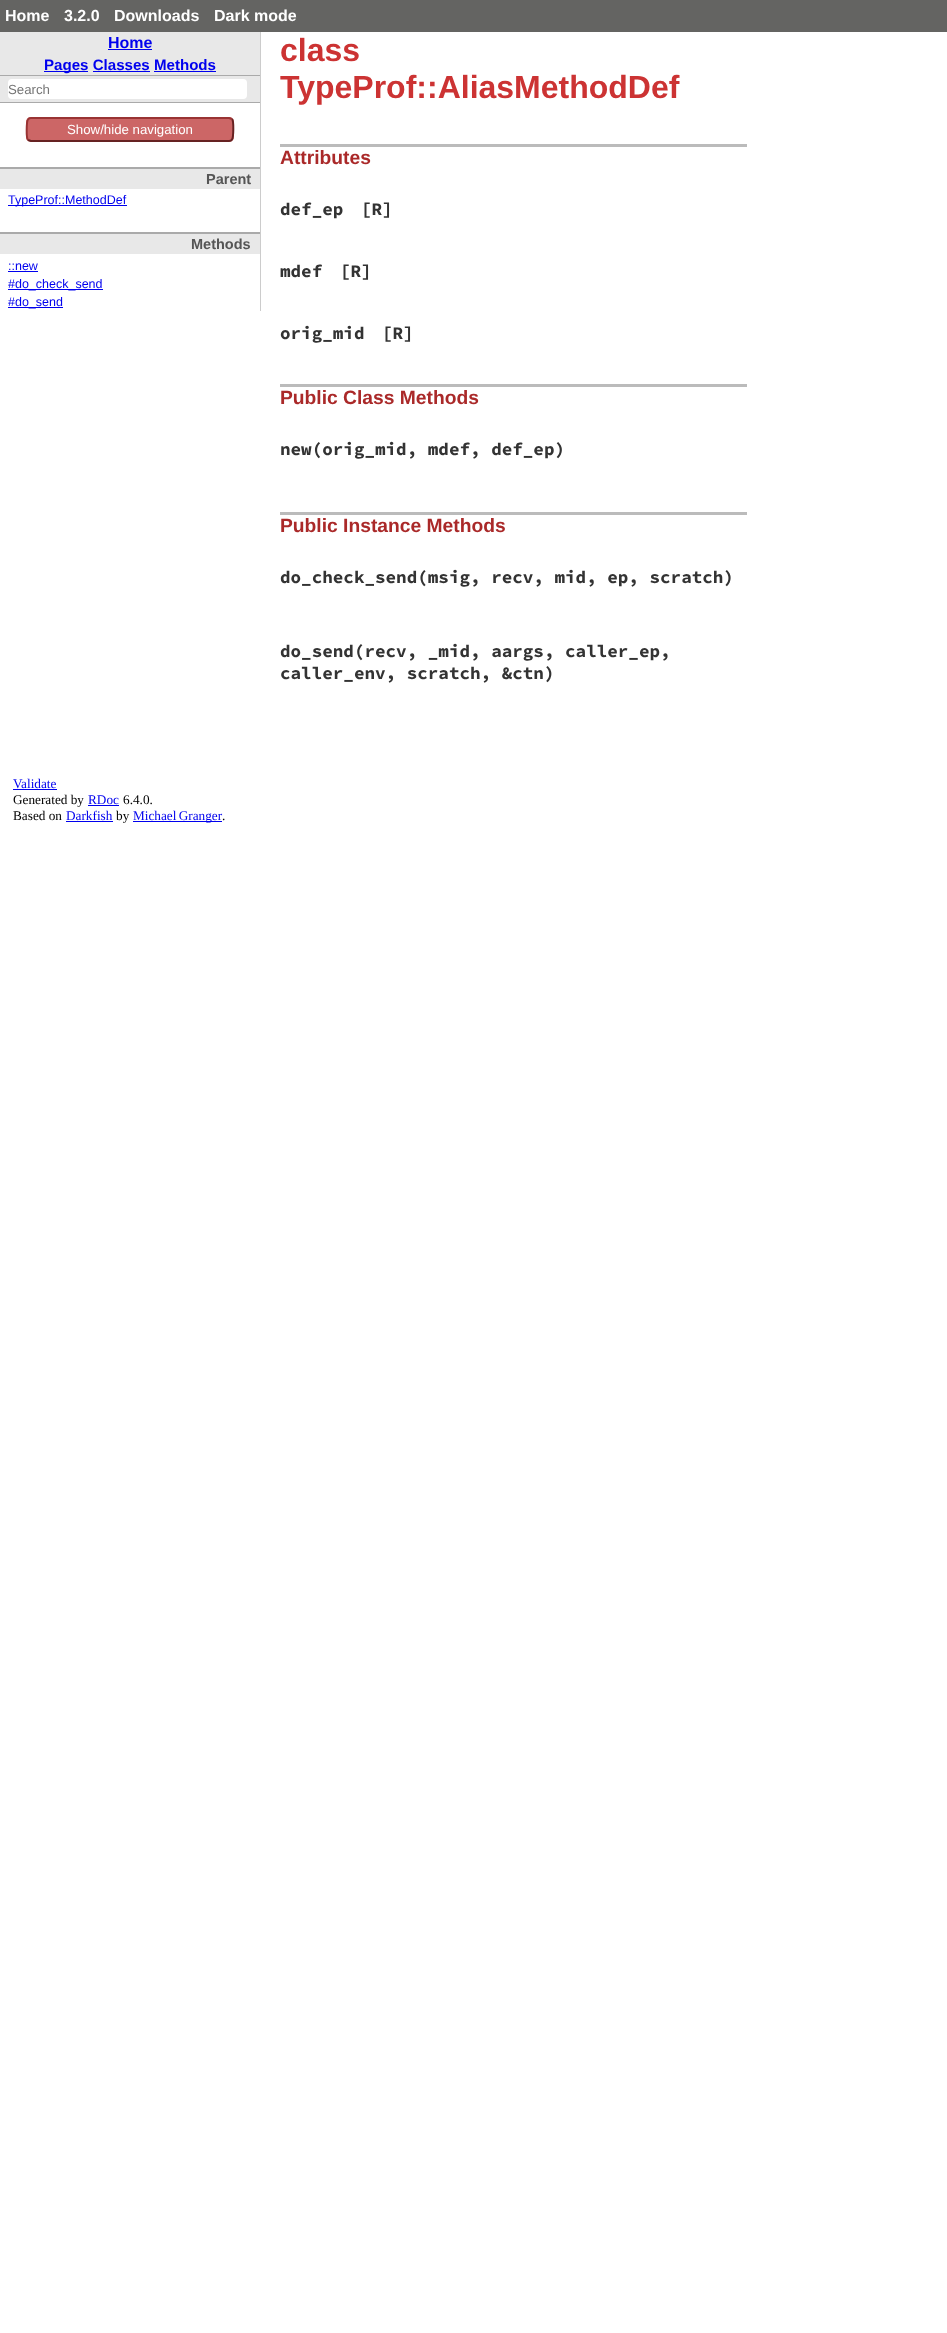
<?xml version="1.0" encoding="UTF-8"?>
<svg xmlns="http://www.w3.org/2000/svg" xmlns:xlink="http://www.w3.org/1999/xlink" width="947" height="2333">
  <rect width="100%" height="100%" fill="#ffffff" />
  <rect width="947" height="32" fill="#646462" />
  <rect x="260" y="32" width="1" height="279" fill="#cccccc" />
  <rect y="32" width="260" height="43" fill="#e8e8e8" />
  <rect x="108" y="49" width="44" height="1" fill="#0000ee" />
  <rect x="44" y="71" width="44" height="1" fill="#0000ee" />
  <rect x="93" y="71" width="57" height="1" fill="#0000ee" />
  <rect x="154" y="71" width="62" height="1" fill="#0000ee" />
  <rect y="76" width="260" height="26" fill="#e8e8e8" />
  <rect y="75" width="260" height="1" fill="#aaaaaa" />
  <rect y="102" width="260" height="1" fill="#aaaaaa" />
  <rect x="8" y="79" width="239" height="20" rx="4" fill="#ffffff" />
  <rect x="26" y="117" width="208" height="25" rx="5" fill="#cc6666" />
  <path d="M 232 119 c 2 2 1.5 18.5 0 20.5 c -0.5 1 -2 1.5 -3 1.5 h -198 l -3 -1" fill="none" stroke="#662222" stroke-width="2" />
  <path d="M 28 140 c -2 -2 -1.5 -18.5 0 -20.5 c 0.5 -1 2 -1.5 3 -1.5 h 198 l 3 1" fill="none" stroke="#993333" stroke-width="2" />
  <rect y="167" width="260" height="2" fill="#aaaaaa" />
  <rect y="169" width="260" height="20" fill="#e8e8e8" />
  <rect x="8" y="205" width="119" height="1" fill="#0000ee" />
  <rect y="232" width="260" height="2" fill="#aaaaaa" />
  <rect y="234" width="260" height="20" fill="#e8e8e8" />
  <rect x="8" y="271" width="30" height="1" fill="#0000ee" />
  <rect x="8" y="289" width="95" height="1" fill="#0000ee" />
  <rect x="8" y="307" width="55" height="1" fill="#0000ee" />
  <rect x="280" y="144" width="467" height="3" fill="#bbbbbb" />
  <rect x="280" y="384" width="467" height="3" fill="#bbbbbb" />
  <rect x="280" y="512" width="467" height="3" fill="#bbbbbb" />
  <rect x="13" y="789" width="44" height="1" fill="#0000ee" />
  <rect x="88" y="805" width="31" height="1" fill="#0000ee" />
  <rect x="66" y="821" width="47" height="1" fill="#0000ee" />
  <rect x="133" y="821" width="89" height="1" fill="#0000ee" />
  <text x="5" y="21" style="font-family: Liberation Sans; font-size: 16px; font-weight: bold; fill: #ffffff">Home</text>
  <text x="64" y="21" style="font-family: Liberation Sans; font-size: 16px; font-weight: bold; fill: #ffffff">3.2.0</text>
  <text x="114" y="21" style="font-family: Liberation Sans; font-size: 16px; font-weight: bold; fill: #ffffff">Downloads</text>
  <text x="214" y="21" style="font-family: Liberation Sans; font-size: 16px; font-weight: bold; fill: #ffffff">Dark mode</text>
  <text x="108" y="48" style="font-family: Liberation Sans; font-size: 16px; font-weight: bold; fill: #0000ee">Home</text>
  <text x="44" y="70" style="font-family: Liberation Sans; font-size: 15.1px; font-weight: bold; fill: #0000ee">Pages Classes Methods</text>
  <text x="8" y="94" style="font-family: Liberation Sans; font-size: 13.25px; fill: #757575">Search</text>
  <text x="67" y="134" style="font-family: Liberation Sans; font-size: 13.25px; fill: #ffffff">Show/hide navigation</text>
  <text x="206" y="184" style="font-family: Liberation Sans; font-size: 14.5px; font-weight: bold; fill: #555555">Parent</text>
  <text x="8" y="204" style="font-family: Liberation Sans; font-size: 12.5px; fill: #0000ee">TypeProf::MethodDef</text>
  <text x="191" y="249" style="font-family: Liberation Sans; font-size: 14.5px; font-weight: bold; fill: #555555">Methods</text>
  <text x="8" y="270" style="font-family: Liberation Sans; font-size: 12.5px; fill: #0000ee">::new</text>
  <text x="8" y="288" style="font-family: Liberation Sans; font-size: 12.5px; fill: #0000ee">#do_check_send</text>
  <text x="8" y="306" style="font-family: Liberation Sans; font-size: 12.5px; fill: #0000ee">#do_send</text>
  <text x="280" y="61" style="font-family: Liberation Sans; font-size: 32px; font-weight: bold; fill: #cc3333">class</text>
  <text x="280" y="98" style="font-family: Liberation Sans; font-size: 32px; font-weight: bold; fill: #cc3333">TypeProf::AliasMethodDef</text>
  <text x="280" y="164" style="font-family: Liberation Sans; font-size: 19.25px; font-weight: bold; fill: #aa2929">Attributes</text>
  <text x="280" y="215" style="font-family: Source Code Pro; font-size: 17.6px; font-weight: bold; fill: #333333">def_ep</text>
  <text x="361" y="215" style="font-family: Source Code Pro; font-size: 17.6px; font-weight: bold; fill: #333333">[R]</text>
  <text x="280" y="277" style="font-family: Source Code Pro; font-size: 17.6px; font-weight: bold; fill: #333333">mdef</text>
  <text x="340" y="277" style="font-family: Source Code Pro; font-size: 17.6px; font-weight: bold; fill: #333333">[R]</text>
  <text x="280" y="339" style="font-family: Source Code Pro; font-size: 17.6px; font-weight: bold; fill: #333333">orig_mid</text>
  <text x="382" y="339" style="font-family: Source Code Pro; font-size: 17.6px; font-weight: bold; fill: #333333">[R]</text>
  <text x="280" y="404" style="font-family: Liberation Sans; font-size: 19.25px; font-weight: bold; fill: #aa2929">Public Class Methods</text>
  <text x="280" y="455" style="font-family: Source Code Pro; font-size: 17.6px; font-weight: bold; fill: #333333">new(orig_mid, mdef, def_ep)</text>
  <text x="280" y="532" style="font-family: Liberation Sans; font-size: 19.25px; font-weight: bold; fill: #aa2929">Public Instance Methods</text>
  <text x="280" y="583" style="font-family: Source Code Pro; font-size: 17.6px; font-weight: bold; fill: #333333">do_check_send(msig, recv, mid, ep, scratch)</text>
  <text x="280" y="657" style="font-family: Source Code Pro; font-size: 17.6px; font-weight: bold; fill: #333333">do_send(recv, _mid, aargs, caller_ep,</text>
  <text x="280" y="679" style="font-family: Source Code Pro; font-size: 17.6px; font-weight: bold; fill: #333333">caller_env, scratch, &amp;ctn)</text>
  <text x="13" y="788" style="font-family: Liberation Serif; font-size: 13.25px; fill: #0000ee">Validate</text>
  <text x="13" y="804" style="font-family: Liberation Serif; font-size: 13.25px; fill: #000000">Generated by</text>
  <text x="88" y="804" style="font-family: Liberation Serif; font-size: 13.25px; fill: #0000ee">RDoc</text>
  <text x="123" y="804" style="font-family: Liberation Serif; font-size: 13.25px; fill: #000000">6.4.0.</text>
  <text x="13" y="820" style="font-family: Liberation Serif; font-size: 13.25px; fill: #000000">Based on</text>
  <text x="66" y="820" style="font-family: Liberation Serif; font-size: 13.25px; fill: #0000ee">Darkfish</text>
  <text x="116" y="820" style="font-family: Liberation Serif; font-size: 13.25px; fill: #000000">by</text>
  <text x="133" y="820" word-spacing="-1" style="font-family: Liberation Serif; font-size: 13.25px; fill: #0000ee">Michael Granger</text>
  <text x="222" y="820" style="font-family: Liberation Serif; font-size: 13.25px; fill: #000000">.</text>
</svg>
